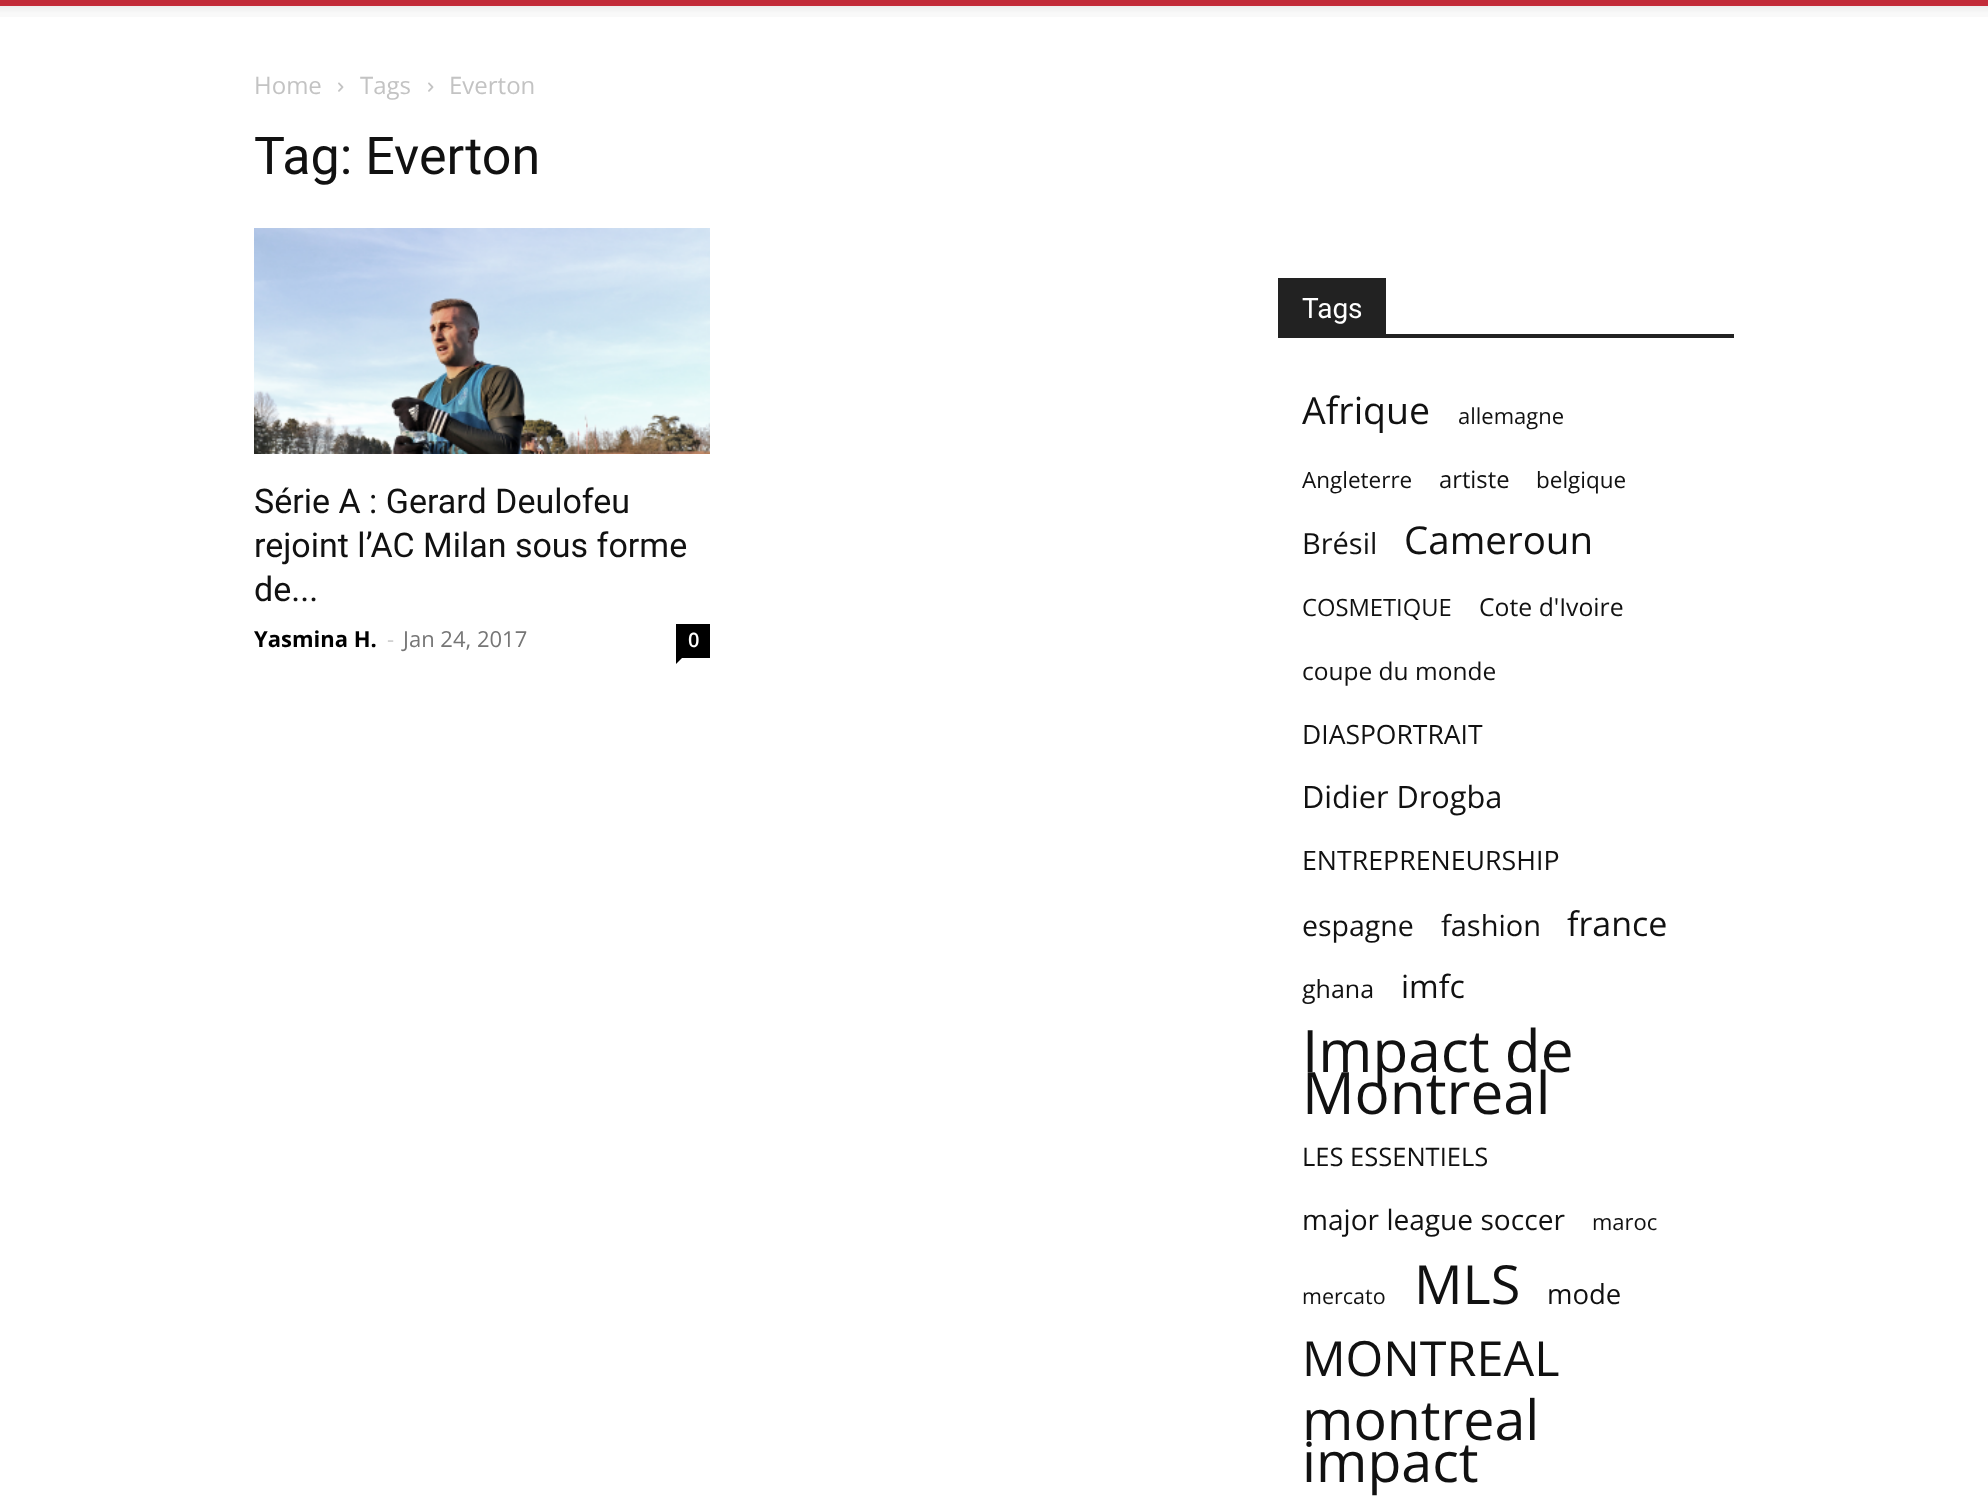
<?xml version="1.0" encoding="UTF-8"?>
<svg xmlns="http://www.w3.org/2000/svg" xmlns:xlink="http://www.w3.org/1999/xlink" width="1988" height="1502">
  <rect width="100%" height="100%" fill="#ffffff" />
  <rect width="1988" height="6" fill="#d3303e" />
  <image x="0" y="0" width="1988" height="17" xlink:href="image1.png" />
  <image x="338" y="82" width="6" height="10" xlink:href="image2.png" />
  <image x="428" y="82" width="6" height="10" xlink:href="image2.png" />
  <image x="254" y="228" width="456" height="226" xlink:href="image3.png" />
  <rect x="676" y="624" width="34" height="34" fill="#000000" />
  <path d="M 676 658 h 6 l -6 6 z" fill="#000000" />
  <rect x="1278" y="334" width="456" height="4" fill="#222222" />
  <rect x="1278" y="278" width="108" height="56" fill="#222222" />
  <text x="254" y="94" style="font-family: Open Sans; font-size: 24px; fill: #c3c3c3">Home</text>
  <text x="360" y="94" style="font-family: Open Sans; font-size: 24px; fill: #c3c3c3">Tags</text>
  <text x="449" y="94" style="font-family: Open Sans; font-size: 24px; fill: #c3c3c3">Everton</text>
  <text x="254" y="174" style="font-family: Roboto; font-size: 52px; fill: #111111">Tag: Everton</text>
  <text x="254" y="513" style="font-family: Roboto; font-size: 34px; fill: #111111">Série A : Gerard Deulofeu</text>
  <text x="254" y="557" style="font-family: Roboto; font-size: 34px; fill: #111111">rejoint l’AC Milan sous forme</text>
  <text x="254" y="601" style="font-family: Roboto; font-size: 34px; fill: #111111">de...</text>
  <text x="254" y="647" style="font-family: Open Sans; font-size: 22px; font-weight: bold; fill: #000000">Yasmina H.</text>
  <text x="387" y="647" style="font-family: Open Sans; font-size: 22px; fill: #cccccc">-</text>
  <text x="403" y="647" style="font-family: Open Sans; font-size: 22px; fill: #767676">Jan 24, 2017</text>
  <text x="688" y="647" style="font-family: Open Sans; font-size: 20px; font-weight: 600; fill: #ffffff">0</text>
  <text x="1302" y="318" style="font-family: Roboto; font-size: 28px; fill: #ffffff">Tags</text>
  <text x="1302" y="424" style="font-family: Open Sans; font-size: 37.5px; fill: #111111">Afrique</text>
  <text x="1458" y="424" style="font-family: Open Sans; font-size: 22px; fill: #111111">allemagne</text>
  <text x="1302" y="488" style="font-family: Open Sans; font-size: 22.5px; fill: #111111">Angleterre</text>
  <text x="1439" y="488" style="font-family: Open Sans; font-size: 23.75px; fill: #111111">artiste</text>
  <text x="1536" y="488" style="font-family: Open Sans; font-size: 22.5px; fill: #111111">belgique</text>
  <text x="1302" y="554" style="font-family: Open Sans; font-size: 29px; fill: #111111">Brésil</text>
  <text x="1404" y="554" style="font-family: Open Sans; font-size: 38.5px; fill: #111111">Cameroun</text>
  <text x="1302" y="616" style="font-family: Open Sans; font-size: 23.75px; fill: #111111">COSMETIQUE</text>
  <text x="1479" y="616" style="font-family: Open Sans; font-size: 24.75px; fill: #111111">Cote d'Ivoire</text>
  <text x="1302" y="680" style="font-family: Open Sans; font-size: 24.5px; fill: #111111">coupe du monde</text>
  <text x="1302" y="744" style="font-family: Open Sans; font-size: 26.5px; fill: #111111">DIASPORTRAIT</text>
  <text x="1302" y="808" style="font-family: Open Sans; font-size: 30.75px; fill: #111111">Didier Drogba</text>
  <text x="1302" y="870" style="font-family: Open Sans; font-size: 26.75px; fill: #111111">ENTREPRENEURSHIP</text>
  <text x="1302" y="936" style="font-family: Open Sans; font-size: 28.5px; fill: #111111">espagne</text>
  <text x="1441" y="936" style="font-family: Open Sans; font-size: 29px; fill: #111111">fashion</text>
  <text x="1567" y="936" style="font-family: Open Sans; font-size: 34px; fill: #111111">france</text>
  <text x="1302" y="998" style="font-family: Open Sans; font-size: 25px; fill: #111111">ghana</text>
  <text x="1401" y="998" style="font-family: Open Sans; font-size: 32px; fill: #111111">imfc</text>
  <text x="1302" y="1072" style="font-family: Open Sans; font-size: 58.5px; fill: #111111">Impact de</text>
  <text x="1302" y="1114" style="font-family: Open Sans; font-size: 58.5px; fill: #111111">Montreal</text>
  <text x="1302" y="1166" style="font-family: Open Sans; font-size: 25.5px; fill: #111111">LES ESSENTIELS</text>
  <text x="1302" y="1230" style="font-family: Open Sans; font-size: 28.1px; fill: #111111">major league soccer</text>
  <text x="1592" y="1230" style="font-family: Open Sans; font-size: 22px; fill: #111111">maroc</text>
  <text x="1302" y="1304" style="font-family: Open Sans; font-size: 21.5px; fill: #111111">mercato</text>
  <text x="1414" y="1304" style="font-family: Open Sans; font-size: 54px; fill: #111111">MLS</text>
  <text x="1547" y="1304" style="font-family: Open Sans; font-size: 27.5px; fill: #111111">mode</text>
  <text x="1302" y="1376" style="font-family: Open Sans; font-size: 48.5px; fill: #111111">MONTREAL</text>
  <text x="1302" y="1440" style="font-family: Open Sans; font-size: 55.5px; fill: #111111">montreal</text>
  <text x="1302" y="1482" style="font-family: Open Sans; font-size: 55.5px; fill: #111111">impact</text>
</svg>
